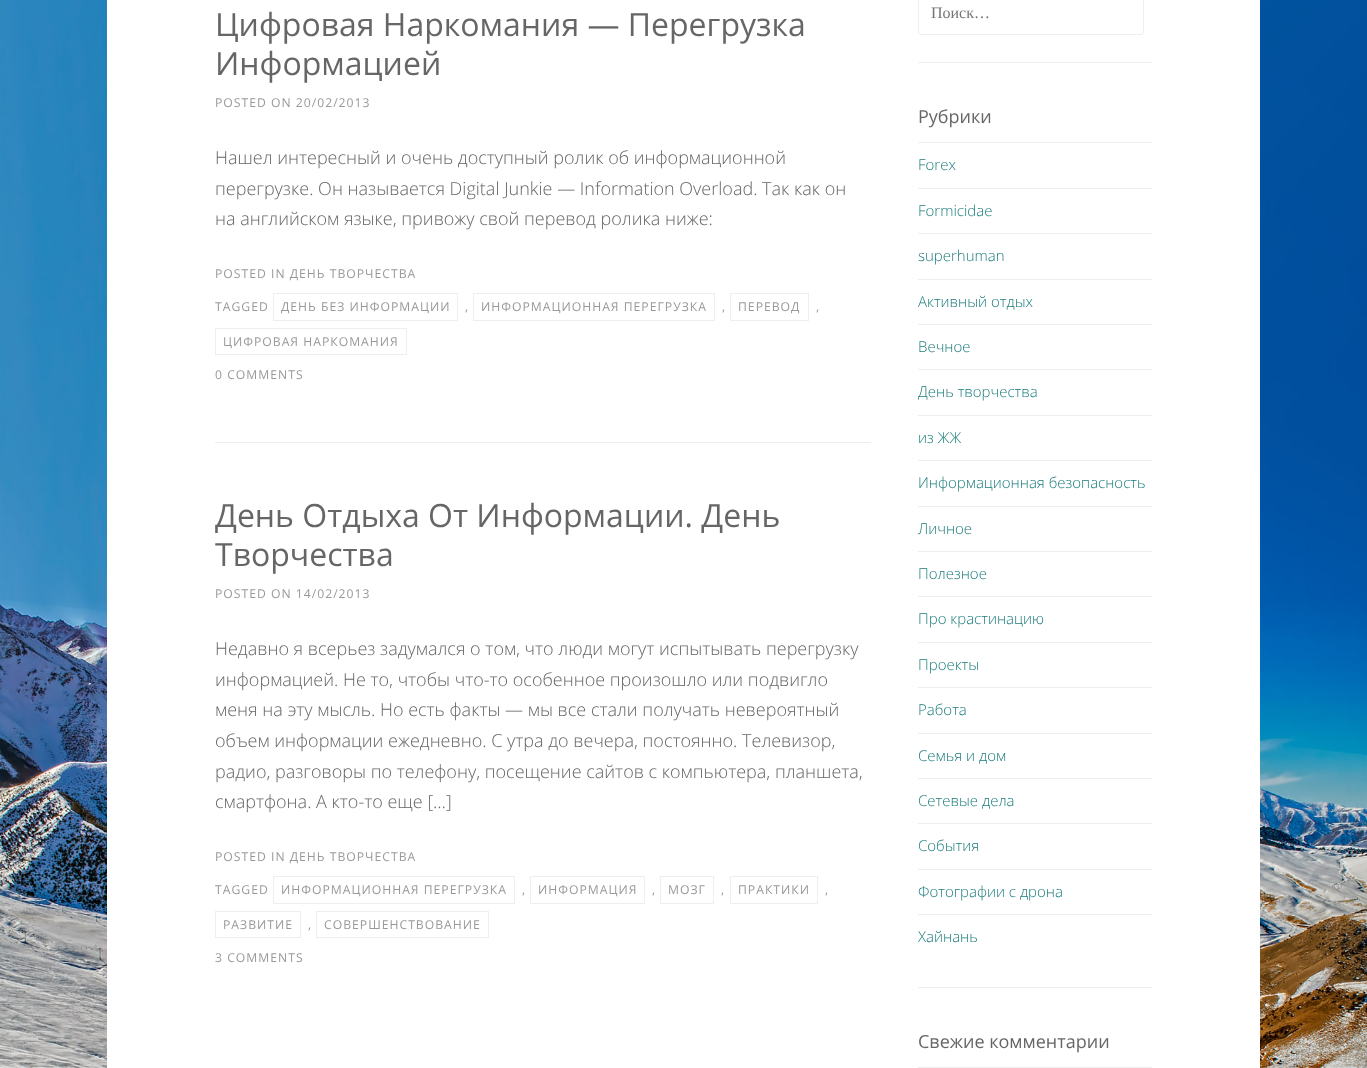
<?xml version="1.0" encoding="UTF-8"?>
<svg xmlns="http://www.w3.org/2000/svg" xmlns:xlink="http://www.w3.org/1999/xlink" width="1367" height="1068">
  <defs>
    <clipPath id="clip1"><rect x="918" y="90" width="234" height="897" /></clipPath>
  </defs>
  <rect width="100%" height="100%" fill="#ffffff" />
  <image x="0" y="0" width="1367" height="1068" xlink:href="image1.png" />
  <rect x="107" width="1153" height="1068" fill="#ffffff" />
  <rect x="215" y="442" width="656" height="1" fill="#eeeeee" />
  <rect x="273.5" y="293.5" width="184" height="27" fill="none" stroke="#eeeeee" />
  <rect x="473.5" y="293.5" width="241" height="27" fill="none" stroke="#eeeeee" />
  <rect x="730.5" y="293.5" width="78" height="27" fill="none" stroke="#eeeeee" />
  <rect x="215.5" y="328.5" width="191" height="26" fill="none" stroke="#eeeeee" />
  <rect x="273.5" y="876.5" width="241" height="27" fill="none" stroke="#eeeeee" />
  <rect x="530.5" y="876.5" width="114" height="27" fill="none" stroke="#eeeeee" />
  <rect x="660.5" y="876.5" width="53" height="27" fill="none" stroke="#eeeeee" />
  <rect x="730.5" y="876.5" width="87" height="27" fill="none" stroke="#eeeeee" />
  <rect x="215.5" y="911.5" width="85" height="26" fill="none" stroke="#eeeeee" />
  <rect x="316.5" y="911.5" width="172" height="26" fill="none" stroke="#eeeeee" />
  <rect x="918" y="62" width="234" height="1" fill="#eeeeee" />
  <rect x="918.5" y="-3.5" width="225" height="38" rx="2.5" fill="none" stroke="#eeeeee" />
  <rect x="918" y="987" width="234" height="1" fill="#eeeeee" />
  <rect x="918" y="142" width="234" height="1" fill="#eeeeee" />
  <rect x="918" y="188" width="234" height="1" fill="#eeeeee" />
  <rect x="918" y="233" width="234" height="1" fill="#eeeeee" />
  <rect x="918" y="279" width="234" height="1" fill="#eeeeee" />
  <rect x="918" y="324" width="234" height="1" fill="#eeeeee" />
  <rect x="918" y="369" width="234" height="1" fill="#eeeeee" />
  <rect x="918" y="415" width="234" height="1" fill="#eeeeee" />
  <rect x="918" y="460" width="234" height="1" fill="#eeeeee" />
  <rect x="918" y="506" width="234" height="1" fill="#eeeeee" />
  <rect x="918" y="551" width="234" height="1" fill="#eeeeee" />
  <rect x="918" y="596" width="234" height="1" fill="#eeeeee" />
  <rect x="918" y="642" width="234" height="1" fill="#eeeeee" />
  <rect x="918" y="687" width="234" height="1" fill="#eeeeee" />
  <rect x="918" y="733" width="234" height="1" fill="#eeeeee" />
  <rect x="918" y="778" width="234" height="1" fill="#eeeeee" />
  <rect x="918" y="823" width="234" height="1" fill="#eeeeee" />
  <rect x="918" y="869" width="234" height="1" fill="#eeeeee" />
  <rect x="918" y="914" width="234" height="1" fill="#eeeeee" />
  <rect x="918" y="1067" width="234" height="1" fill="#eeeeee" />
  <text x="215" y="36" style="font-family: Open Sans; font-size: 32px; fill: #666666">Цифровая Наркомания — Перегрузка</text>
  <text x="215" y="75" style="font-family: Open Sans; font-size: 32px; fill: #666666">Информацией</text>
  <text x="215" y="107" style="font-family: Open Sans; font-size: 12.2px; letter-spacing: 1px; fill: #999999">POSTED ON 20/02/2013</text>
  <text x="215" y="164" style="font-family: Open Sans; font-size: 18px; font-weight: 300; fill: #666666">Нашел интересный и очень доступный ролик об информационной</text>
  <text x="215" y="195" style="font-family: Open Sans; font-size: 18px; font-weight: 300; fill: #666666">перегрузке. Он называется Digital Junkie — Information Overload. Так как он</text>
  <text x="215" y="225" style="font-family: Open Sans; font-size: 18px; font-weight: 300; fill: #666666">на английском языке, привожу свой перевод ролика ниже:</text>
  <text x="215" y="278" style="font-family: Open Sans; font-size: 12.2px; letter-spacing: 1px; fill: #999999">POSTED IN ДЕНЬ ТВОРЧЕСТВА</text>
  <text x="215" y="311" style="font-family: Open Sans; font-size: 12.2px; letter-spacing: 1px; fill: #999999">TAGGED</text>
  <text x="281" y="311" style="font-family: Open Sans; font-size: 12.2px; letter-spacing: 1px; fill: #999999">ДЕНЬ БЕЗ ИНФОРМАЦИИ</text>
  <text x="465" y="311" style="font-family: Open Sans; font-size: 12.2px; letter-spacing: 1px; fill: #999999">,</text>
  <text x="481" y="311" style="font-family: Open Sans; font-size: 12.2px; letter-spacing: 1px; fill: #999999">ИНФОРМАЦИОННАЯ ПЕРЕГРУЗКА</text>
  <text x="722" y="311" style="font-family: Open Sans; font-size: 12.2px; letter-spacing: 1px; fill: #999999">,</text>
  <text x="738" y="311" style="font-family: Open Sans; font-size: 12.2px; letter-spacing: 1px; fill: #999999">ПЕРЕВОД</text>
  <text x="816" y="311" style="font-family: Open Sans; font-size: 12.2px; letter-spacing: 1px; fill: #999999">,</text>
  <text x="223" y="346" style="font-family: Open Sans; font-size: 12.2px; letter-spacing: 1px; fill: #999999">ЦИФРОВАЯ НАРКОМАНИЯ</text>
  <text x="215" y="379" style="font-family: Open Sans; font-size: 12.2px; letter-spacing: 1px; fill: #999999">0 COMMENTS</text>
  <text x="215" y="527" style="font-family: Open Sans; font-size: 32px; fill: #666666">День Отдыха От Информации. День</text>
  <text x="215" y="566" style="font-family: Open Sans; font-size: 32px; fill: #666666">Творчества</text>
  <text x="215" y="598" style="font-family: Open Sans; font-size: 12.2px; letter-spacing: 1px; fill: #999999">POSTED ON 14/02/2013</text>
  <text x="215" y="655" style="font-family: Open Sans; font-size: 18px; font-weight: 300; fill: #666666">Недавно я всерьез задумался о том, что люди могут испытывать перегрузку</text>
  <text x="215" y="686" style="font-family: Open Sans; font-size: 18px; font-weight: 300; fill: #666666">информацией. Не то, чтобы что-то особенное произошло или подвигло</text>
  <text x="215" y="716" style="font-family: Open Sans; font-size: 18px; font-weight: 300; fill: #666666">меня на эту мысль. Но есть факты — мы все стали получать невероятный</text>
  <text x="215" y="747" style="font-family: Open Sans; font-size: 18px; font-weight: 300; fill: #666666">объем информации ежедневно. С утра до вечера, постоянно. Телевизор,</text>
  <text x="215" y="778" style="font-family: Open Sans; font-size: 18px; font-weight: 300; fill: #666666">радио, разговоры по телефону, посещение сайтов с компьютера, планшета,</text>
  <text x="215" y="808" style="font-family: Open Sans; font-size: 18px; font-weight: 300; fill: #666666">смартфона. А кто-то еще […]</text>
  <text x="215" y="861" style="font-family: Open Sans; font-size: 12.2px; letter-spacing: 1px; fill: #999999">POSTED IN ДЕНЬ ТВОРЧЕСТВА</text>
  <text x="215" y="894" style="font-family: Open Sans; font-size: 12.2px; letter-spacing: 1px; fill: #999999">TAGGED</text>
  <text x="281" y="894" style="font-family: Open Sans; font-size: 12.2px; letter-spacing: 1px; fill: #999999">ИНФОРМАЦИОННАЯ ПЕРЕГРУЗКА</text>
  <text x="522" y="894" style="font-family: Open Sans; font-size: 12.2px; letter-spacing: 1px; fill: #999999">,</text>
  <text x="538" y="894" style="font-family: Open Sans; font-size: 12.2px; letter-spacing: 1px; fill: #999999">ИНФОРМАЦИЯ</text>
  <text x="652" y="894" style="font-family: Open Sans; font-size: 12.2px; letter-spacing: 1px; fill: #999999">,</text>
  <text x="668" y="894" style="font-family: Open Sans; font-size: 12.2px; letter-spacing: 1px; fill: #999999">МОЗГ</text>
  <text x="721" y="894" style="font-family: Open Sans; font-size: 12.2px; letter-spacing: 1px; fill: #999999">,</text>
  <text x="738" y="894" style="font-family: Open Sans; font-size: 12.2px; letter-spacing: 1px; fill: #999999">ПРАКТИКИ</text>
  <text x="825" y="894" style="font-family: Open Sans; font-size: 12.2px; letter-spacing: 1px; fill: #999999">,</text>
  <text x="223" y="929" style="font-family: Open Sans; font-size: 12.2px; letter-spacing: 1px; fill: #999999">РАЗВИТИЕ</text>
  <text x="308" y="929" style="font-family: Open Sans; font-size: 12.2px; letter-spacing: 1px; fill: #999999">,</text>
  <text x="324" y="929" style="font-family: Open Sans; font-size: 12.2px; letter-spacing: 1px; fill: #999999">СОВЕРШЕНСТВОВАНИЕ</text>
  <text x="215" y="962" style="font-family: Open Sans; font-size: 12.2px; letter-spacing: 1px; fill: #999999">3 COMMENTS</text>
  <text x="931" y="18" style="font-family: Liberation Serif; font-size: 16px; fill: #757575">Поиск…</text>
  <text x="918" y="123" style="font-family: Open Sans; font-size: 18px; fill: #666666">Рубрики</text>
  <text x="918" y="170" style="font-family: Open Sans; font-size: 15px; font-weight: 300; fill: #1c7c7c">Forex</text>
  <text x="918" y="216" style="font-family: Open Sans; font-size: 15px; font-weight: 300; fill: #1c7c7c">Formicidae</text>
  <text x="918" y="261" style="font-family: Open Sans; font-size: 15px; font-weight: 300; fill: #1c7c7c">superhuman</text>
  <text x="918" y="307" style="font-family: Open Sans; font-size: 15px; font-weight: 300; fill: #1c7c7c">Активный отдых</text>
  <text x="918" y="352" style="font-family: Open Sans; font-size: 15px; font-weight: 300; fill: #1c7c7c">Вечное</text>
  <g clip-path="url(#clip1)">
    <text x="918" y="397" style="font-family: Open Sans; font-size: 15px; font-weight: 300; fill: #1c7c7c">День творчества</text>
  </g>
  <text x="918" y="443" style="font-family: Open Sans; font-size: 15px; font-weight: 300; fill: #1c7c7c">из ЖЖ</text>
  <text x="918" y="488" style="font-family: Open Sans; font-size: 15px; font-weight: 300; fill: #1c7c7c">Информационная безопасность</text>
  <text x="918" y="534" style="font-family: Open Sans; font-size: 15px; font-weight: 300; fill: #1c7c7c">Личное</text>
  <text x="918" y="579" style="font-family: Open Sans; font-size: 15px; font-weight: 300; fill: #1c7c7c">Полезное</text>
  <text x="918" y="624" style="font-family: Open Sans; font-size: 15px; font-weight: 300; fill: #1c7c7c">Про крастинацию</text>
  <text x="918" y="670" style="font-family: Open Sans; font-size: 15px; font-weight: 300; fill: #1c7c7c">Проекты</text>
  <text x="918" y="715" style="font-family: Open Sans; font-size: 15px; font-weight: 300; fill: #1c7c7c">Работа</text>
  <text x="918" y="761" style="font-family: Open Sans; font-size: 15px; font-weight: 300; fill: #1c7c7c">Семья и дом</text>
  <text x="918" y="806" style="font-family: Open Sans; font-size: 15px; font-weight: 300; fill: #1c7c7c">Сетевые дела</text>
  <text x="918" y="851" style="font-family: Open Sans; font-size: 15px; font-weight: 300; fill: #1c7c7c">События</text>
  <text x="918" y="897" style="font-family: Open Sans; font-size: 15px; font-weight: 300; fill: #1c7c7c">Фотографии с дрона</text>
  <text x="918" y="942" style="font-family: Open Sans; font-size: 15px; font-weight: 300; fill: #1c7c7c">Хайнань</text>
  <text x="918" y="1048" style="font-family: Open Sans; font-size: 18px; fill: #666666">Свежие комментарии</text>
</svg>
